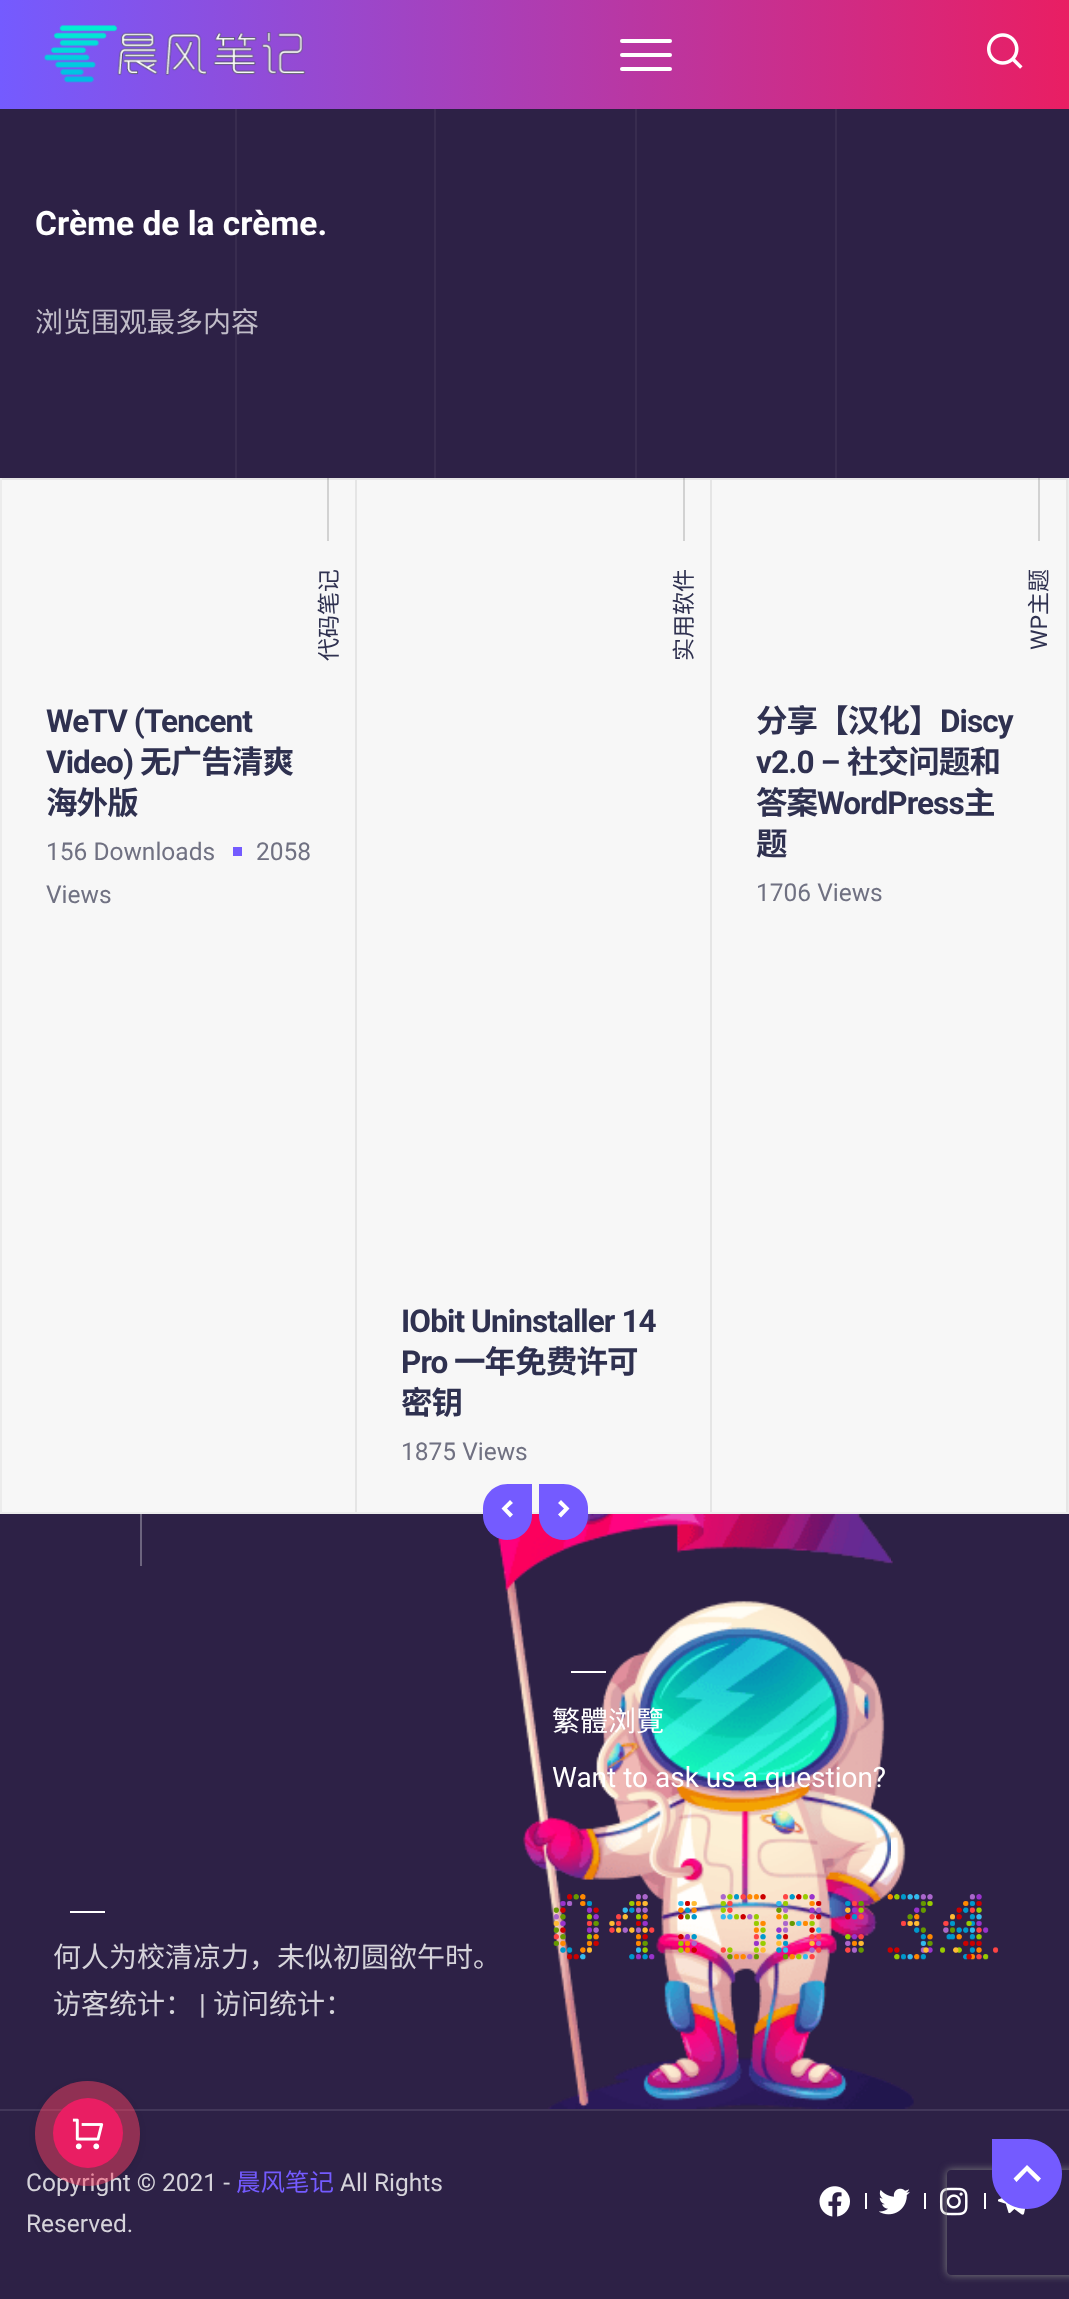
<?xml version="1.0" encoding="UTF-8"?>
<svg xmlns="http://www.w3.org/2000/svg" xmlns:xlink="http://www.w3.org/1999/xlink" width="1069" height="2299">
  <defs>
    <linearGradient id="g1" gradientUnits="userSpaceOnUse" x1="0" y1="54" x2="1069" y2="54"><stop offset="0" stop-color="#745bff" /><stop offset="1" stop-color="#e91e63" /></linearGradient>
    <clipPath id="clip1"><path d="M 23 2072 h 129 v 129 h -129 z m 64.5 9 c 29 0 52.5 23.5 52.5 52.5 c 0 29 -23.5 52.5 -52.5 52.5 c -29 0 -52.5 -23.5 -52.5 -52.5 c 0 -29 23.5 -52.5 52.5 -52.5 z" clip-rule="evenodd" /></clipPath>
    <clipPath id="clip2"><path d="M 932 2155 h 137 v 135 h -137 z m 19 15 h 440 c 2 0 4 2 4 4 v 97 c 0 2 -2 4 -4 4 h -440 c -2 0 -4 -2 -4 -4 v -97 c 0 -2 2 -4 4 -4 z" clip-rule="evenodd" /></clipPath>
  </defs>
  <rect width="100%" height="100%" fill="#2d2146" />
  <rect width="1069" height="109" fill="url(#g1)" />
  <image x="44" y="25" width="262" height="58" xlink:href="image1.png" />
  <rect x="620" y="39" width="52" height="4" rx="2" fill="#ffffff" />
  <rect x="620" y="53" width="52" height="4" rx="2" fill="#ffffff" />
  <rect x="620" y="67" width="52" height="4" rx="2" fill="#ffffff" />
  <image x="987" y="33" width="36" height="36" xlink:href="image2.png" />
  <rect x="235" y="109" width="2" height="369" fill="#382c4f" />
  <rect x="434" y="109" width="2" height="369" fill="#382c4f" />
  <rect x="635" y="109" width="2" height="369" fill="#382c4f" />
  <rect x="835" y="109" width="2" height="369" fill="#382c4f" />
  <rect y="478" width="1069" height="1036" fill="#ffffff" />
  <path d="M 1069 478 v 1036 l -1 -2 v -1034 z" fill="#ececec" />
  <path d="M 1069 1514 h -1069 l 2 -2 h 1066 z" fill="#9e9e9e" fill-opacity="0.2" />
  <path d="M 0 1514 v -1036 h 2 v 1034 z" fill="#9e9e9e" fill-opacity="0.2" />
  <rect x="2" y="478" width="1066" height="1034" fill="#f7f7f7" />
  <path d="M 2 478 h 355 l -2 2 h -353 z" fill="#e5e5e5" />
  <path d="M 357 478 v 1034 h -2 v -1032 z" fill="#9e9e9e" fill-opacity="0.2" />
  <rect x="327" y="478" width="2" height="63" fill="#000000" fill-opacity="0.15" />
  <rect x="233" y="847" width="9" height="9" fill="#745bff" />
  <path d="M 357 478 h 355 l -2 2 h -353 z" fill="#e5e5e5" />
  <path d="M 712 478 v 1034 h -2 v -1032 z" fill="#9e9e9e" fill-opacity="0.2" />
  <rect x="683" y="478" width="2" height="63" fill="#000000" fill-opacity="0.15" />
  <path d="M 712 478 h 356 l -2 2 h -354 z" fill="#e5e5e5" />
  <path d="M 1068 478 v 1034 h -2 v -1032 z" fill="#9e9e9e" fill-opacity="0.2" />
  <rect x="1038" y="478" width="2" height="63" fill="#000000" fill-opacity="0.15" />
  <image x="496" y="1514" width="418" height="595" xlink:href="image3.png" />
  <path d="M 507.5 1484 h 24.5 v 31.5 c 0 13.5 -11 24.5 -24.5 24.5 c -13.5 0 -24.5 -11 -24.5 -24.5 v -7 c 0 -13.5 11 -24.5 24.5 -24.5 z" fill="#745bff" />
  <path d="M 507 1508.5 l 6 6 l -3 3 l -8.5 -9 l 8.5 -8.5 l 3 3 z" fill="#ffffff" />
  <path d="M 539 1484 h 24.5 c 13.5 0 24.5 11 24.5 24.5 v 7 c 0 13.5 -11 24.5 -24.5 24.5 c -13.5 0 -24.5 -11 -24.5 -24.5 z" fill="#745bff" />
  <path d="M 564 1508.5 l -6 -5.5 l 3 -3 l 8.5 8.5 l -8.5 9 l -3 -3 z" fill="#ffffff" />
  <rect x="140" y="1514" width="2" height="52" fill="#6c647e" />
  <rect x="571" y="1671" width="35" height="2" fill="#ffffff" />
  <image x="553" y="1894" width="446" height="66" xlink:href="image4.png" />
  <rect x="70" y="1911" width="35" height="2" fill="#ffffff" />
  <rect y="2109" width="1069" height="2" fill="#423759" />
  <image x="819" y="2186" width="31" height="31" xlink:href="image5.png" />
  <rect x="865" y="2193" width="2" height="16" fill="#ffffff" />
  <image x="879" y="2188" width="31" height="27" xlink:href="image6.png" />
  <rect x="924" y="2193" width="2" height="16" fill="#ffffff" />
  <image x="939" y="2187" width="29" height="29" xlink:href="image7.png" />
  <rect x="984" y="2193" width="2" height="16" fill="#ffffff" />
  <image x="998" y="2198" width="28" height="17" xlink:href="image8.png" />
  <g clip-path="url(#clip1)">
    <rect x="35" y="2084" width="105" height="105" rx="52.5" fill="#000000" fill-opacity="0.07" filter="blur(3.5px)" />
  </g>
  <g clip-path="url(#clip2)">
    <rect x="947" y="2170" width="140" height="105" rx="4" fill="#808080" filter="blur(4.5px)" />
  </g>
  <path d="M 992 2139 h 35 c 19.5 0 35 15.5 35 35 c 0 19.5 -15.5 35 -35 35 c -19.5 0 -35 -15.5 -35 -35 z" fill="#745bff" />
  <path d="M 1027 2171 l -10.5 11 l -3 -3.5 l 13.5 -13.5 l 14 13.5 l -3 3.5 z" fill="#ffffff" />
  <text x="35" y="235" style="font-family: Roboto; font-size: 33.5px; font-weight: bold; fill: #ffffff">Crème de la crème.</text>
  <text x="35" y="332" style="font-family: Noto Sans CJK SC; font-size: 28px; fill: #c0bcc8">浏览围观最多内容</text>
  <text x="337" y="661" transform="rotate(-90 337 661)" style="font-family: Noto Sans CJK SC; font-size: 23px; fill: #2f3150">代码笔记</text>
  <text x="46" y="732" style="font-family: Roboto; font-size: 31.5px; font-weight: bold; letter-spacing: -0.9px; fill: #2f3150">WeTV (Tencent</text>
  <text x="46" y="773" style="font-family: Roboto; font-size: 31.5px; font-weight: bold; letter-spacing: -0.9px; fill: #2f3150">Video)</text>
  <text x="140" y="773" style="font-family: Noto Sans CJK SC; font-size: 31.5px; font-weight: bold; letter-spacing: -0.9px; fill: #2f3150">无广告清爽</text>
  <text x="46" y="814" style="font-family: Noto Sans CJK SC; font-size: 31.5px; font-weight: bold; letter-spacing: -0.9px; fill: #2f3150">海外版</text>
  <text x="46" y="860" style="font-family: Roboto; font-size: 24.5px; fill: #707182">156 Downloads</text>
  <text x="256" y="860" style="font-family: Roboto; font-size: 24.5px; fill: #707182">2058</text>
  <text x="46" y="903" style="font-family: Roboto; font-size: 24.5px; fill: #707182">Views</text>
  <text x="692" y="661" transform="rotate(-90 692 661)" style="font-family: Noto Sans CJK SC; font-size: 23px; fill: #2f3150">实用软件</text>
  <text x="401" y="1332" style="font-family: Roboto; font-size: 31.5px; font-weight: bold; letter-spacing: -0.9px; fill: #2f3150">IObit Uninstaller 14</text>
  <text x="401" y="1373" style="font-family: Roboto; font-size: 31.5px; font-weight: bold; letter-spacing: -0.9px; fill: #2f3150">Pro</text>
  <text x="454" y="1373" style="font-family: Noto Sans CJK SC; font-size: 31.5px; font-weight: bold; letter-spacing: -0.9px; fill: #2f3150">一年免费许可</text>
  <text x="401" y="1414" style="font-family: Noto Sans CJK SC; font-size: 31.5px; font-weight: bold; letter-spacing: -0.9px; fill: #2f3150">密钥</text>
  <text x="401" y="1460" style="font-family: Roboto; font-size: 24.5px; fill: #707182">1875 Views</text>
  <text x="1047" y="615" transform="rotate(-90 1047 615)" style="font-family: Noto Sans CJK SC; font-size: 23px; fill: #2f3150">主题</text>
  <text x="1047" y="650" transform="rotate(-90 1047 650)" style="font-family: Roboto; font-size: 23px; fill: #2f3150">WP</text>
  <text x="756" y="732" style="font-family: Noto Sans CJK SC; font-size: 31.5px; font-weight: bold; letter-spacing: -0.9px; fill: #2f3150">分享【汉化】</text>
  <text x="940" y="732" style="font-family: Roboto; font-size: 31.5px; font-weight: bold; letter-spacing: -0.9px; fill: #2f3150">Discy</text>
  <text x="756" y="773" style="font-family: Roboto; font-size: 31.5px; font-weight: bold; letter-spacing: -0.9px; fill: #2f3150">v2.0 –</text>
  <text x="847" y="773" style="font-family: Noto Sans CJK SC; font-size: 31.5px; font-weight: bold; letter-spacing: -0.9px; fill: #2f3150">社交问题和</text>
  <text x="756" y="814" style="font-family: Noto Sans CJK SC; font-size: 31.5px; font-weight: bold; letter-spacing: -0.9px; fill: #2f3150">答案</text>
  <text x="817" y="814" style="font-family: Roboto; font-size: 31.5px; font-weight: bold; letter-spacing: -0.9px; fill: #2f3150">WordPress</text>
  <text x="964" y="814" style="font-family: Noto Sans CJK SC; font-size: 31.5px; font-weight: bold; letter-spacing: -0.9px; fill: #2f3150">主</text>
  <text x="756" y="855" style="font-family: Noto Sans CJK SC; font-size: 31.5px; font-weight: bold; letter-spacing: -0.9px; fill: #2f3150">题</text>
  <text x="756" y="901" style="font-family: Roboto; font-size: 24.5px; fill: #707182">1706 Views</text>
  <text x="552" y="1731" style="font-family: Noto Sans CJK SC; font-size: 28px; fill: #ffffff">繁體浏覽</text>
  <text x="552" y="1787" style="font-family: Roboto; font-size: 28px; fill: #ffffff">Want to ask us a question?</text>
  <text x="53" y="1967" style="font-family: Noto Sans CJK SC; font-size: 28px; fill: #d5d3da">何人为校清凉力，未似初圆欲午时。</text>
  <text x="53" y="2014" style="font-family: Noto Sans CJK SC; font-size: 28px; fill: #d5d3da">访客统计：</text>
  <text x="199" y="2014" style="font-family: Roboto; font-size: 28px; fill: #d5d3da">|</text>
  <text x="213" y="2014" style="font-family: Noto Sans CJK SC; font-size: 28px; fill: #d5d3da">访问统计：</text>
  <text x="26" y="2191" style="font-family: Roboto; font-size: 24.5px; fill: #d5d3da">Copyright © 2021 -</text>
  <text x="236" y="2191" style="font-family: Noto Sans CJK SC; font-size: 24.5px; fill: #745bff">晨风笔记</text>
  <text x="340" y="2191" style="font-family: Roboto; font-size: 24.5px; fill: #d5d3da">All Rights</text>
  <text x="26" y="2232" style="font-family: Roboto; font-size: 24.5px; fill: #d5d3da">Reserved.</text>
  <circle cx="87.5" cy="2133.5" r="52.5" fill="#ff4364" fill-opacity="0.25" />
  <circle cx="87.5" cy="2133.5" r="52.5" fill="#ff4364" fill-opacity="0.3" />
  <circle cx="88" cy="2133" r="35" fill="#e91e63" />
  <image x="72" y="2118" width="32" height="32" xlink:href="image9.png" />
</svg>
